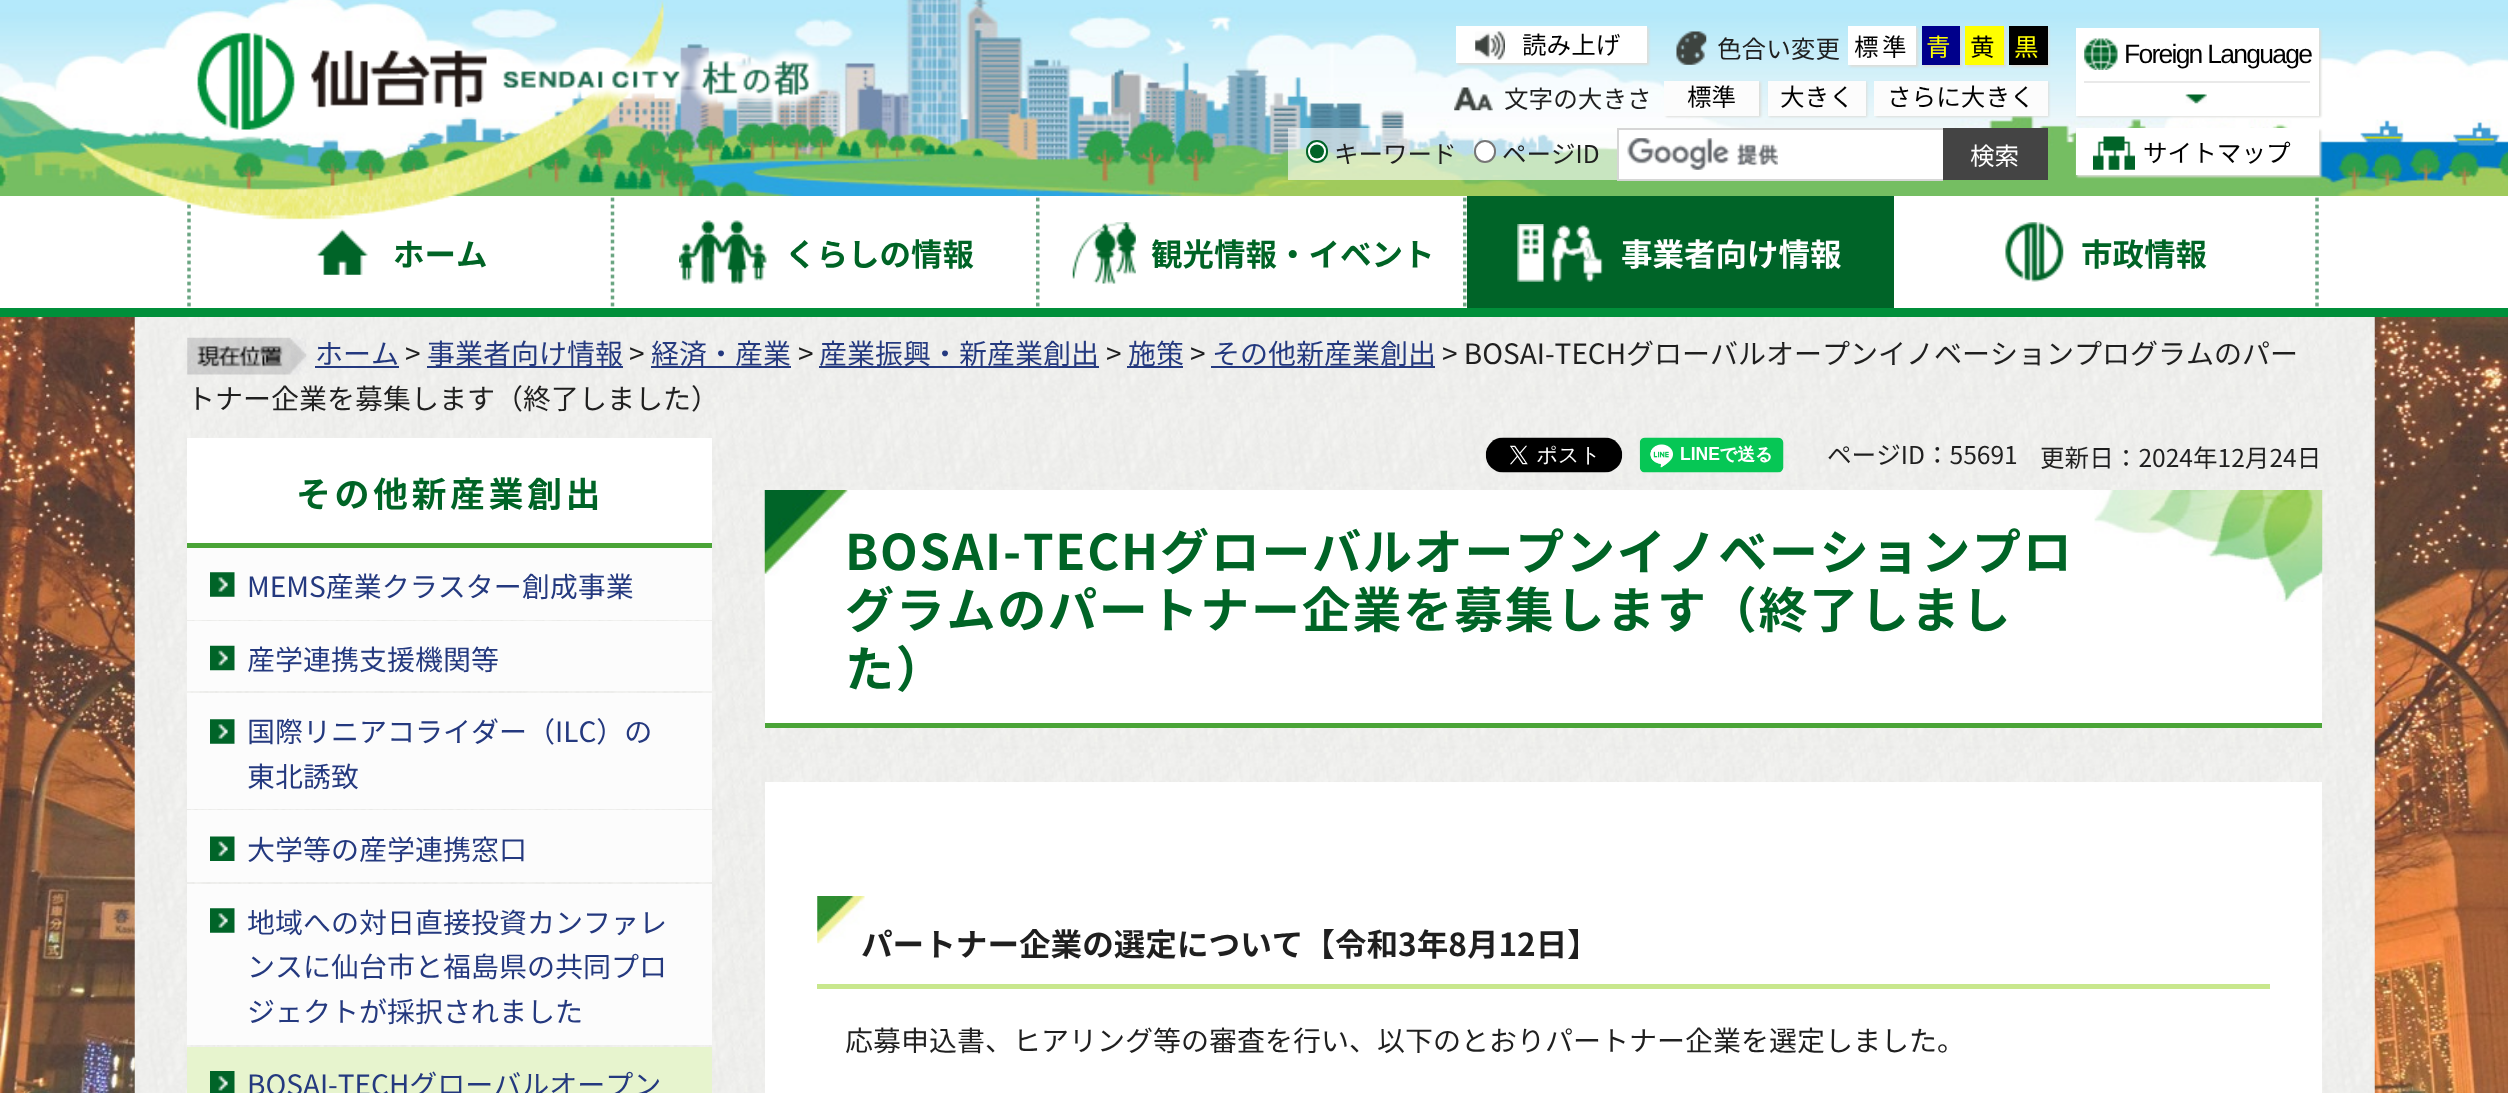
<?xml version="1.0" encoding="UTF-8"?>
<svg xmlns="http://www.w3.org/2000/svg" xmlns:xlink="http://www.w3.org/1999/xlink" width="2508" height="1093">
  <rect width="100%" height="100%" fill="#ffffff" />
  <image x="0" y="0" width="2508" height="196" xlink:href="image1.png" />
  <image x="134" y="51" width="2241" height="133" xlink:href="image2.png" />
  <image x="197" y="32" width="625" height="112" xlink:href="image3.png" />
  <rect x="1458" y="28" width="191" height="37" fill="#dcddd9" filter="blur(1px)" />
  <rect x="1456" y="26" width="191" height="37" fill="#ffffff" />
  <image x="1475" y="31" width="30" height="29" xlink:href="image4.png" />
  <image x="1676" y="31" width="31" height="34" xlink:href="image5.png" />
  <rect x="1850" y="28" width="68" height="39" fill="#dcddd9" filter="blur(1px)" />
  <rect x="1848" y="26" width="68" height="39" fill="#ffffff" />
  <rect x="1923" y="28" width="39" height="39" fill="#dcddd9" filter="blur(1px)" />
  <rect x="1922" y="26" width="38" height="39" fill="#00008b" />
  <rect x="1967" y="28" width="39" height="39" fill="#dcddd9" filter="blur(1px)" />
  <rect x="1965" y="26" width="39" height="39" fill="#ffff00" />
  <rect x="2011" y="28" width="38" height="39" fill="#dcddd9" filter="blur(1px)" />
  <rect x="2009" y="26" width="39" height="39" fill="#000000" />
  <image x="1454" y="87" width="39" height="24" xlink:href="image6.png" />
  <rect x="1666" y="82" width="95" height="35" fill="#dcddd9" filter="blur(1px)" />
  <rect x="1664" y="81" width="95" height="35" fill="#fcfcfc" />
  <rect x="1769" y="82" width="98" height="35" fill="#dcddd9" filter="blur(1px)" />
  <rect x="1768" y="81" width="98" height="35" fill="#fcfcfc" />
  <rect x="1876" y="82" width="173" height="35" fill="#dcddd9" filter="blur(1px)" />
  <rect x="1874" y="81" width="174" height="35" fill="#fcfcfc" />
  <rect x="1288" y="128" width="329" height="52" fill="#ffffff" fill-opacity="0.6" />
  <rect x="1307" y="141" width="20" height="21" rx="10" fill="#ffffff" stroke="#006428" stroke-width="2" />
  <circle cx="1317" cy="151.5" r="7" fill="#006428" />
  <rect x="1475" y="141" width="20" height="21" rx="10" fill="#ffffff" stroke="#767676" stroke-width="2" />
  <rect x="1619" y="130" width="324" height="49" fill="#ffffff" />
  <image x="1627" y="138" width="151" height="32" xlink:href="image7.png" />
  <rect x="1617" y="128" width="326" height="2" fill="#d6d6d6" />
  <rect x="1617" y="179" width="326" height="2" fill="#d6d6d6" />
  <rect x="1617" y="128" width="2" height="52" fill="#d6d6d6" />
  <rect x="1943" y="128" width="105" height="52" fill="#444444" />
  <rect x="2077" y="30" width="244" height="87" fill="#dcddd9" filter="blur(1px)" />
  <rect x="2076" y="28" width="243" height="88" fill="#ffffff" />
  <image x="2084" y="38" width="34" height="32" xlink:href="image8.png" />
  <rect x="2084" y="81" width="226" height="2" fill="#e9e9e9" />
  <image x="2185" y="94" width="22" height="10" xlink:href="image9.png" />
  <rect x="2077" y="130" width="244" height="47" fill="#dcddd9" filter="blur(1px)" />
  <rect x="2076" y="128" width="243" height="47" fill="#ffffff" />
  <image x="2093" y="136" width="42" height="34" xlink:href="image10.png" />
  <rect y="308" width="2508" height="9" fill="#008f3a" />
  <image x="187" y="200" width="4" height="107" xlink:href="image12.png" />
  <image x="167" y="196" width="284" height="24" xlink:href="image11.png" />
  <image x="610" y="197" width="5" height="110" xlink:href="image13.png" />
  <image x="316" y="229" width="52" height="46" xlink:href="image14.png" />
  <image x="1036" y="197" width="4" height="110" xlink:href="image15.png" />
  <image x="679" y="220" width="88" height="64" xlink:href="image16.png" />
  <image x="1463" y="197" width="4" height="110" xlink:href="image15.png" />
  <image x="1072" y="222" width="64" height="62" xlink:href="image17.png" />
  <rect x="1467" y="196" width="427" height="112" fill="#006428" />
  <image x="1517" y="224" width="86" height="58" xlink:href="image18.png" />
  <image x="2315" y="197" width="4" height="110" xlink:href="image19.png" />
  <image x="2005" y="222" width="59" height="60" xlink:href="image20.png" />
  <image x="0" y="317" width="2508" height="776" xlink:href="image21.png" />
  <image x="134" y="317" width="2241" height="776" xlink:href="image22.png" />
  <image x="187" y="337" width="120" height="38" xlink:href="image23.png" />
  <rect x="315" y="366" width="84" height="2" fill="#24397f" />
  <rect x="427" y="366" width="196" height="2" fill="#24397f" />
  <rect x="651" y="366" width="140" height="2" fill="#24397f" />
  <rect x="819" y="366" width="280" height="2" fill="#24397f" />
  <rect x="1127" y="366" width="56" height="2" fill="#24397f" />
  <rect x="1211" y="366" width="224" height="2" fill="#24397f" />
  <rect x="187" y="438" width="525" height="105" fill="#ffffff" />
  <rect x="187" y="543" width="525" height="5" fill="#4aa437" />
  <rect x="187" y="548" width="525" height="72" fill="#fcfcfc" />
  <image x="210" y="572" width="25" height="25" xlink:href="image24.png" />
  <rect x="187" y="621" width="525" height="70" fill="#fcfcfc" />
  <image x="210" y="645" width="25" height="26" xlink:href="image25.png" />
  <rect x="187" y="693" width="525" height="116" fill="#fcfcfc" />
  <image x="210" y="719" width="25" height="25" xlink:href="image24.png" />
  <rect x="187" y="810" width="525" height="72" fill="#fcfcfc" />
  <image x="210" y="836" width="25" height="25" xlink:href="image26.png" />
  <rect x="187" y="884" width="525" height="161" fill="#fcfcfc" />
  <image x="210" y="908" width="25" height="25" xlink:href="image24.png" />
  <rect x="187" y="1047" width="525" height="46" fill="#e7f4ce" />
  <image x="210" y="1071" width="25" height="22" xlink:href="image27.png" />
  <image x="1485" y="437" width="138" height="36" xlink:href="image28.png" />
  <image x="1639" y="437" width="145" height="36" xlink:href="image29.png" />
  <rect x="765" y="602" width="1557" height="121" fill="#ffffff" />
  <image x="764" y="490" width="1559" height="112" xlink:href="image30.png" />
  <rect x="765" y="723" width="1557" height="5" fill="#4aa437" />
  <rect x="765" y="782" width="1557" height="311" fill="#ffffff" />
  <image x="817" y="896" width="48" height="48" xlink:href="image31.png" />
  <rect x="817" y="984" width="1453" height="5" fill="#c8e78d" />
  <text x="1522" y="54" style="font-family: Noto Sans JP; font-size: 24.6px; fill: #000000">読み上げ</text>
  <text x="1717" y="58" style="font-family: Noto Sans JP; font-size: 24.6px; fill: #1f1f1f">色合い変更</text>
  <text x="1854" y="56" style="font-family: Noto Sans JP; font-size: 24.6px; letter-spacing: 3.5px; fill: #000000">標準</text>
  <text x="1926" y="56" style="font-family: Noto Sans JP; font-size: 24.6px; letter-spacing: 3.5px; fill: #ffff00">青</text>
  <text x="1970" y="56" style="font-family: Noto Sans JP; font-size: 24.6px; letter-spacing: 3.5px; fill: #000000">黄</text>
  <text x="2014" y="56" style="font-family: Noto Sans JP; font-size: 24.6px; letter-spacing: 3.5px; fill: #ffff00">黒</text>
  <text x="1504" y="108" style="font-family: Noto Sans JP; font-size: 24.6px; fill: #1f1f1f">文字の大きさ</text>
  <text x="1687" y="106" style="font-family: Noto Sans JP; font-size: 24.6px; fill: #000000">標準</text>
  <text x="1780" y="106" style="font-family: Noto Sans JP; font-size: 24.6px; fill: #000000">大きく</text>
  <text x="1887" y="106" style="font-family: Noto Sans JP; font-size: 24.6px; fill: #000000">さらに大きく</text>
  <text x="1334" y="163" style="font-family: Noto Sans JP; font-size: 24.5px; fill: #1f1f1f">キーワード</text>
  <text x="1502" y="163" style="font-family: Noto Sans JP; font-size: 24.5px; fill: #1f1f1f">ページID</text>
  <text x="1970" y="165" style="font-family: Noto Sans JP; font-size: 24.6px; fill: #ffffff">検索</text>
  <text x="2124" y="63" style="font-family: Liberation Sans; font-size: 26.5px; letter-spacing: -1.75px; fill: #000000">Foreign Language</text>
  <text x="2143" y="162" style="font-family: Noto Sans JP; font-size: 24.6px; fill: #000000">サイトマップ</text>
  <text x="393" y="266" style="font-family: Noto Sans JP; font-size: 31.5px; font-weight: bold; fill: #006426">ホーム</text>
  <text x="785" y="266" style="font-family: Noto Sans JP; font-size: 31.5px; font-weight: bold; fill: #006426">くらしの情報</text>
  <text x="1151" y="266" style="font-family: Noto Sans JP; font-size: 31.5px; font-weight: bold; fill: #006426">観光情報・イベント</text>
  <text x="1621" y="266" style="font-family: Noto Sans JP; font-size: 31.5px; font-weight: bold; fill: #ffffff">事業者向け情報</text>
  <text x="2081" y="266" style="font-family: Noto Sans JP; font-size: 31.5px; font-weight: bold; fill: #006426">市政情報</text>
  <text x="315" y="364" style="font-family: Noto Sans JP; font-size: 28px; fill: #24397f">ホーム</text>
  <text x="405" y="364" style="font-family: Noto Sans JP; font-size: 28px; fill: #1f1f1f">&gt;</text>
  <text x="427" y="364" style="font-family: Noto Sans JP; font-size: 28px; fill: #24397f">事業者向け情報</text>
  <text x="629" y="364" style="font-family: Noto Sans JP; font-size: 28px; fill: #1f1f1f">&gt;</text>
  <text x="651" y="364" style="font-family: Noto Sans JP; font-size: 28px; fill: #24397f">経済・産業</text>
  <text x="798" y="364" style="font-family: Noto Sans JP; font-size: 28px; fill: #1f1f1f">&gt;</text>
  <text x="819" y="364" style="font-family: Noto Sans JP; font-size: 28px; fill: #24397f">産業振興・新産業創出</text>
  <text x="1106" y="364" style="font-family: Noto Sans JP; font-size: 28px; fill: #1f1f1f">&gt;</text>
  <text x="1128" y="364" style="font-family: Noto Sans JP; font-size: 28px; fill: #24397f">施策</text>
  <text x="1190" y="364" style="font-family: Noto Sans JP; font-size: 28px; fill: #1f1f1f">&gt;</text>
  <text x="1212" y="364" style="font-family: Noto Sans JP; font-size: 28px; fill: #24397f">その他新産業創出</text>
  <text x="1442" y="364" style="font-family: Noto Sans JP; font-size: 28px; fill: #1f1f1f">&gt; BOSAI-TECHグローバルオープンイノベーションプログラムのパー</text>
  <text x="187" y="409" style="font-family: Noto Sans JP; font-size: 28px; fill: #1f1f1f">トナー企業を募集します（終了しました）</text>
  <text x="296" y="507" style="font-family: Noto Sans JP; font-size: 35px; font-weight: bold; letter-spacing: 3.5px; fill: #006426">その他新産業創出</text>
  <text x="247" y="597" style="font-family: Noto Sans JP; font-size: 28px; fill: #24397f">MEMS産業クラスター創成事業</text>
  <text x="247" y="670" style="font-family: Noto Sans JP; font-size: 28px; fill: #24397f">産学連携支援機関等</text>
  <text x="247" y="742" style="font-family: Noto Sans JP; font-size: 28px; fill: #24397f">国際リニアコライダー（ILC）の</text>
  <text x="247" y="787" style="font-family: Noto Sans JP; font-size: 28px; fill: #24397f">東北誘致</text>
  <text x="247" y="860" style="font-family: Noto Sans JP; font-size: 28px; fill: #24397f">大学等の産学連携窓口</text>
  <text x="247" y="933" style="font-family: Noto Sans JP; font-size: 28px; fill: #24397f">地域への対日直接投資カンファレ</text>
  <text x="247" y="977" style="font-family: Noto Sans JP; font-size: 28px; fill: #24397f">ンスに仙台市と福島県の共同プロ</text>
  <text x="247" y="1022" style="font-family: Noto Sans JP; font-size: 28px; fill: #24397f">ジェクトが採択されました</text>
  <text x="247" y="1095" style="font-family: Noto Sans JP; font-size: 28px; fill: #24397f">BOSAI-TECHグローバルオープン</text>
  <text x="1827" y="464" style="font-family: Noto Sans JP; font-size: 24.6px; fill: #1f1f1f">ページID：55691</text>
  <text x="2040" y="467" style="font-family: Noto Sans JP; font-size: 24.6px; fill: #1f1f1f">更新日：2024年12月24日</text>
  <text x="845" y="570" style="font-family: Noto Sans JP; font-size: 49px; font-weight: bold; letter-spacing: 1.75px; fill: #006426">BOSAI-TECHグローバルオープンイノベーションプロ</text>
  <text x="845" y="628" style="font-family: Noto Sans JP; font-size: 49px; font-weight: bold; letter-spacing: 1.75px; fill: #006426">グラムのパートナー企業を募集します（終了しまし</text>
  <text x="845" y="687" style="font-family: Noto Sans JP; font-size: 49px; font-weight: bold; letter-spacing: 1.75px; fill: #006426">た）</text>
  <text x="861" y="956" style="font-family: Noto Sans JP; font-size: 31.6px; font-weight: bold; fill: #1f1f1f">パートナー企業の選定について【令和3年8月12日】</text>
  <text x="845" y="1051" style="font-family: Noto Sans JP; font-size: 28px; fill: #1f1f1f">応募申込書、ヒアリング等の審査を行い、以下のとおりパートナー企業を選定しました。</text>
</svg>
